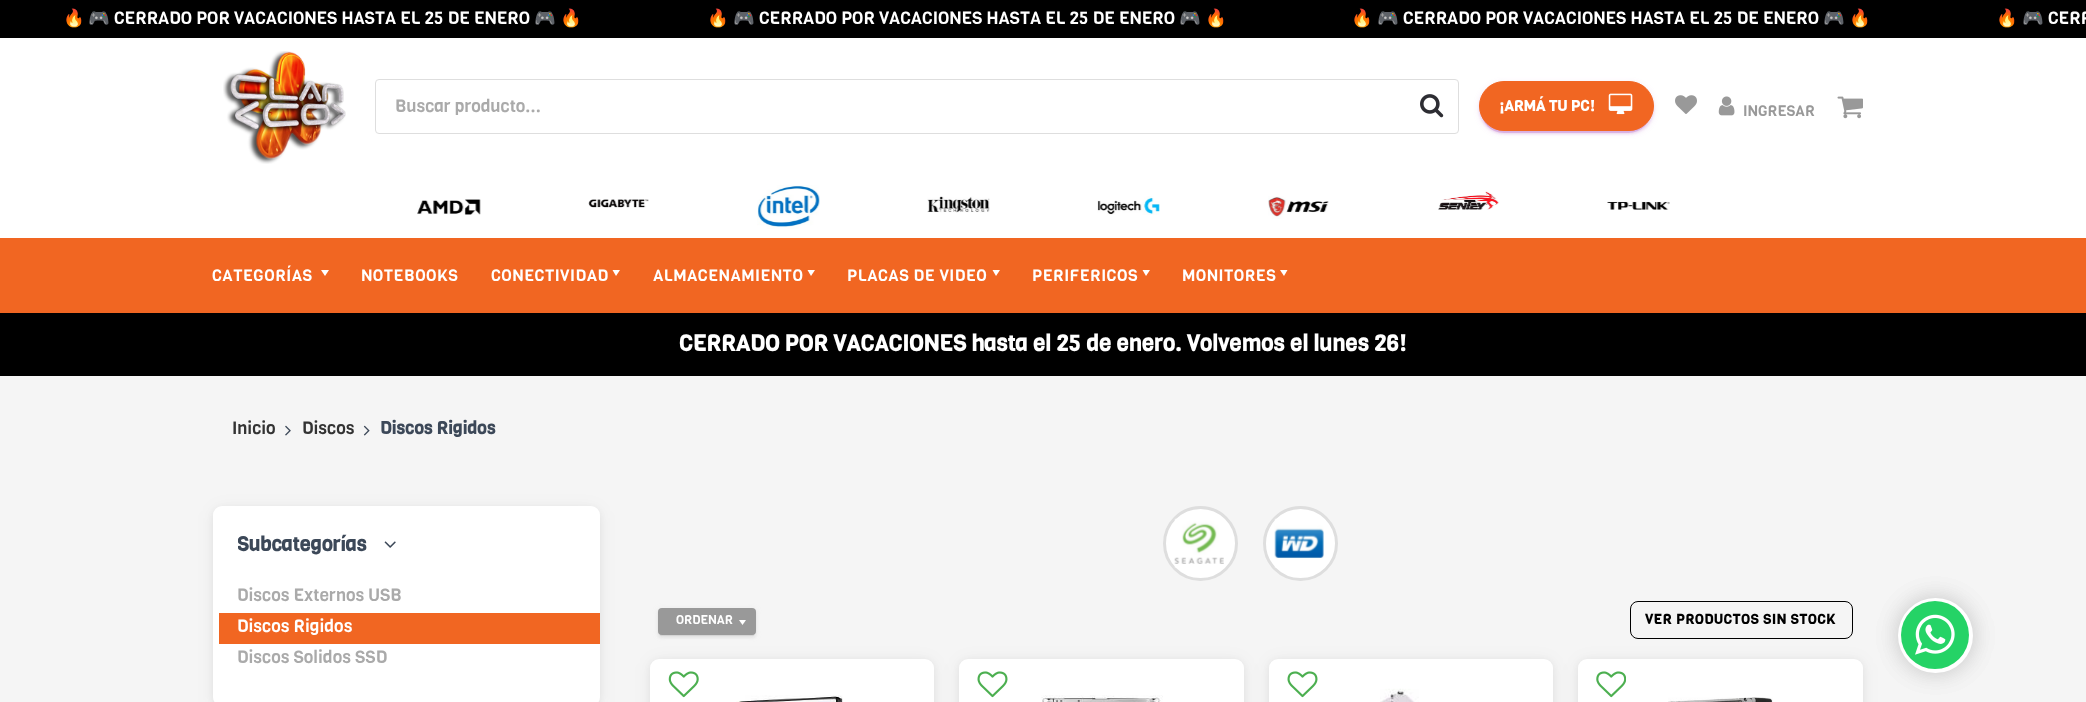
<?xml version="1.0" encoding="UTF-8"?>
<svg xmlns="http://www.w3.org/2000/svg" xmlns:xlink="http://www.w3.org/1999/xlink" width="2086" height="702">
  <defs>
    <clipPath id="clip1"><rect x="238" y="531" width="158" height="27" /></clipPath>
  </defs>
  <rect width="100%" height="100%" fill="#f5f5f5" />
  <rect width="2086" height="38" fill="#000000" />
  <rect y="38" width="2086" height="200" fill="#ffffff" />
  <image x="417" y="199" width="64" height="16" xlink:href="image1.png" />
  <image x="588" y="199" width="61" height="9" xlink:href="image2.png" />
  <image x="757" y="185" width="63" height="44" xlink:href="image3.png" />
  <image x="927" y="196" width="63" height="17" xlink:href="image4.png" />
  <image x="1097" y="196" width="63" height="19" xlink:href="image5.png" />
  <image x="1268" y="196" width="61" height="23" xlink:href="image6.png" />
  <image x="1438" y="191" width="61" height="19" xlink:href="image7.png" />
  <image x="1607" y="201" width="63" height="9" xlink:href="image8.png" />
  <image x="223" y="51" width="123" height="113" xlink:href="image9.png" />
  <rect x="375.5" y="79.5" width="1083" height="54" rx="3.5" fill="none" stroke="#dedede" />
  <image x="1420" y="94" width="24" height="24" xlink:href="image10.png" />
  <rect x="1479" y="83" width="175" height="50" rx="25" fill="#9c27b0" fill-opacity="0.12" filter="blur(3px)" />
  <rect x="1481" y="88" width="170" height="45" rx="22.5" fill="#9c27b0" fill-opacity="0.2" filter="blur(0.5px)" />
  <rect x="1479" y="84" width="175" height="50" rx="25" fill="#9c27b0" fill-opacity="0.14" filter="blur(1px)" />
  <rect x="1479.5" y="81.5" width="174" height="49" rx="24.5" fill="#f16622" stroke="#f16622" />
  <image x="1608" y="93" width="25" height="22" xlink:href="image11.png" />
  <image x="1675" y="95" width="22" height="19" xlink:href="image12.png" />
  <image x="1718" y="96" width="17" height="20" xlink:href="image13.png" />
  <image x="1837" y="96" width="26" height="23" xlink:href="image14.png" />
  <rect y="238" width="2086" height="75" fill="#f16622" />
  <path d="M 321 270 h 8 l -4 6 z" fill="#ffffff" />
  <path d="M 612.5 270 h 7.5 l -4 6 z" fill="#ffffff" />
  <path d="M 807.5 270 h 7.5 l -4 6 z" fill="#ffffff" />
  <path d="M 992.5 270 h 7.5 l -4 6 z" fill="#ffffff" />
  <path d="M 1142.5 270 h 7.5 l -4 6 z" fill="#ffffff" />
  <path d="M 1280 270 h 7.5 l -3.5 6 z" fill="#ffffff" />
  <rect y="313" width="2086" height="63" fill="#000000" />
  <image x="285" y="425" width="6" height="11" xlink:href="image15.png" />
  <image x="363" y="425" width="7" height="11" xlink:href="image16.png" />
  <rect x="213" y="508" width="387" height="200" rx="9" fill="#000000" fill-opacity="0.05" filter="blur(3px)" />
  <rect x="213" y="509" width="387" height="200" rx="9" fill="#000000" fill-opacity="0.05" filter="blur(9px)" />
  <rect x="213" y="506" width="387" height="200" rx="9" fill="#ffffff" />
  <image x="384" y="541" width="12" height="7" xlink:href="image17.png" />
  <rect x="219" y="613" width="381" height="31" fill="#f16622" />
  <circle cx="1200.5" cy="543.5" r="36" fill="#ffffff" stroke="#dedede" stroke-width="3" />
  <image x="1174" y="518" width="50" height="50" xlink:href="image18.png" />
  <circle cx="1300.5" cy="543.5" r="36" fill="#ffffff" stroke="#dedede" stroke-width="3" />
  <image x="1274" y="518" width="50" height="50" xlink:href="image19.png" />
  <rect x="658" y="609" width="98" height="27" rx="4" fill="#999999" fill-opacity="0.12" filter="blur(3px)" />
  <rect x="660" y="614" width="94" height="22" rx="1" fill="#999999" fill-opacity="0.2" filter="blur(0.5px)" />
  <rect x="658" y="610" width="98" height="28" rx="4" fill="#999999" fill-opacity="0.14" filter="blur(1px)" />
  <rect x="658" y="608" width="98" height="27" rx="4" fill="#999999" />
  <path d="M 739 620 h 7 l -3.5 5 z" fill="#ffffff" />
  <rect x="1630.5" y="601.5" width="222" height="37" rx="7.5" fill="none" stroke="#000000" />
  <rect x="650" y="660" width="284" height="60" rx="9" fill="#000000" fill-opacity="0.05" filter="blur(3px)" />
  <rect x="650" y="661" width="284" height="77" rx="9" fill="#000000" fill-opacity="0.05" filter="blur(9px)" />
  <rect x="650" y="659" width="284" height="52" rx="9" fill="#ffffff" />
  <image x="668" y="671" width="31" height="27" xlink:href="image20.png" />
  <image x="736" y="695" width="107" height="7" xlink:href="image21.png" />
  <rect x="959" y="660" width="285" height="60" rx="9" fill="#000000" fill-opacity="0.05" filter="blur(3px)" />
  <rect x="959" y="661" width="285" height="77" rx="9" fill="#000000" fill-opacity="0.05" filter="blur(9px)" />
  <rect x="959" y="659" width="285" height="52" rx="9" fill="#ffffff" />
  <image x="977" y="671" width="31" height="27" xlink:href="image22.png" />
  <image x="1041" y="695" width="122" height="7" xlink:href="image23.png" />
  <rect x="1269" y="660" width="284" height="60" rx="9" fill="#000000" fill-opacity="0.05" filter="blur(3px)" />
  <rect x="1269" y="661" width="284" height="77" rx="9" fill="#000000" fill-opacity="0.05" filter="blur(9px)" />
  <rect x="1269" y="659" width="284" height="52" rx="9" fill="#ffffff" />
  <image x="1287" y="671" width="31" height="27" xlink:href="image22.png" />
  <image x="1380" y="688" width="39" height="14" xlink:href="image24.png" />
  <rect x="1578" y="660" width="285" height="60" rx="9" fill="#000000" fill-opacity="0.05" filter="blur(3px)" />
  <rect x="1578" y="661" width="285" height="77" rx="9" fill="#000000" fill-opacity="0.05" filter="blur(9px)" />
  <rect x="1578" y="659" width="285" height="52" rx="9" fill="#ffffff" />
  <image x="1596" y="671" width="30" height="27" xlink:href="image25.png" />
  <image x="1668" y="697" width="105" height="5" xlink:href="image26.png" />
  <rect x="1898" y="598" width="75" height="75" rx="37.5" fill="#000000" fill-opacity="0.1" filter="blur(12.5px)" />
  <rect x="1898" y="598" width="75" height="75" rx="37.5" fill="#000000" fill-opacity="0.1" filter="blur(12.5px)" />
  <circle cx="1935.5" cy="635.5" r="37.5" fill="#ffffff" />
  <circle cx="1935" cy="635" r="34" fill="#25d366" />
  <image x="1915" y="614" width="40" height="41" xlink:href="image27.png" />
  <text x="63" y="24" style="font-family: Noto Color Emoji; font-size: 17.5px; fill: #ffffff">🔥</text>
  <text x="88" y="24" style="font-family: Noto Color Emoji; font-size: 17.5px; fill: #ffffff">🎮</text>
  <text x="114" y="24" style="font-family: Viga; font-size: 17.5px; fill: #ffffff">CERRADO POR VACACIONES HASTA EL 25 DE ENERO</text>
  <text x="534" y="24" style="font-family: Noto Color Emoji; font-size: 17.5px; fill: #ffffff">🎮</text>
  <text x="560" y="24" style="font-family: Noto Color Emoji; font-size: 17.5px; fill: #ffffff">🔥</text>
  <text x="707" y="24" style="font-family: Noto Color Emoji; font-size: 17.5px; fill: #ffffff">🔥</text>
  <text x="733" y="24" style="font-family: Noto Color Emoji; font-size: 17.5px; fill: #ffffff">🎮</text>
  <text x="759" y="24" style="font-family: Viga; font-size: 17.5px; fill: #ffffff">CERRADO POR VACACIONES HASTA EL 25 DE ENERO</text>
  <text x="1179" y="24" style="font-family: Noto Color Emoji; font-size: 17.5px; fill: #ffffff">🎮</text>
  <text x="1205" y="24" style="font-family: Noto Color Emoji; font-size: 17.5px; fill: #ffffff">🔥</text>
  <text x="1351" y="24" style="font-family: Noto Color Emoji; font-size: 17.5px; fill: #ffffff">🔥</text>
  <text x="1377" y="24" style="font-family: Noto Color Emoji; font-size: 17.5px; fill: #ffffff">🎮</text>
  <text x="1403" y="24" style="font-family: Viga; font-size: 17.5px; fill: #ffffff">CERRADO POR VACACIONES HASTA EL 25 DE ENERO</text>
  <text x="1823" y="24" style="font-family: Noto Color Emoji; font-size: 17.5px; fill: #ffffff">🎮</text>
  <text x="1849" y="24" style="font-family: Noto Color Emoji; font-size: 17.5px; fill: #ffffff">🔥</text>
  <text x="1996" y="24" style="font-family: Noto Color Emoji; font-size: 17.5px; fill: #ffffff">🔥</text>
  <text x="2022" y="24" style="font-family: Noto Color Emoji; font-size: 17.5px; fill: #ffffff">🎮</text>
  <text x="2048" y="24" style="font-family: Viga; font-size: 17.5px; fill: #ffffff">CERR</text>
  <text x="395" y="112" style="font-family: Viga; font-size: 17.5px; fill: #aaaaaa">Buscar producto...</text>
  <text x="1499" y="111" style="font-family: Viga; font-size: 15px; font-weight: bold; fill: #ffffff">¡ARMÁ TU PC!</text>
  <text x="1743" y="116" style="font-family: Viga; font-size: 15px; fill: #999999">INGRESAR</text>
  <text x="212" y="281" style="font-family: Viga; font-size: 16.25px; letter-spacing: 0.5px; fill: #ffffff">CATEGORÍAS</text>
  <text x="361" y="281" style="font-family: Viga; font-size: 16.25px; letter-spacing: 0.5px; fill: #ffffff">NOTEBOOKS</text>
  <text x="491" y="281" style="font-family: Viga; font-size: 16.25px; letter-spacing: 0.5px; fill: #ffffff">CONECTIVIDAD</text>
  <text x="653" y="281" style="font-family: Viga; font-size: 16.25px; letter-spacing: 0.5px; fill: #ffffff">ALMACENAMIENTO</text>
  <text x="847" y="281" style="font-family: Viga; font-size: 16.25px; letter-spacing: 0.5px; fill: #ffffff">PLACAS DE VIDEO</text>
  <text x="1032" y="281" style="font-family: Viga; font-size: 16.25px; letter-spacing: 0.5px; fill: #ffffff">PERIFERICOS</text>
  <text x="1182" y="281" style="font-family: Viga; font-size: 16.25px; letter-spacing: 0.5px; fill: #ffffff">MONITORES</text>
  <text x="679" y="351" style="font-family: Viga; font-size: 22.5px; font-weight: bold; fill: #ffffff">CERRADO POR VACACIONES hasta el 25 de enero. Volvemos el lunes 26!</text>
  <text x="232" y="434" style="font-family: Viga; font-size: 17.5px; fill: #333333">Inicio</text>
  <text x="302" y="434" style="font-family: Viga; font-size: 17.5px; fill: #333333">Discos</text>
  <text x="380" y="434" style="font-family: Viga; font-size: 17.5px; font-weight: bold; fill: #3c4858">Discos Rigidos</text>
  <g clip-path="url(#clip1)">
    <text x="237" y="551" style="font-family: Viga; font-size: 20px; font-weight: bold; fill: #3c4858">Subcategorías</text>
  </g>
  <text x="237" y="601" style="font-family: Viga; font-size: 17.5px; fill: #aaaaaa">Discos Externos USB</text>
  <text x="237" y="632" style="font-family: Viga; font-size: 17.5px; fill: #ffffff">Discos Rigidos</text>
  <text x="237" y="663" style="font-family: Viga; font-size: 17.5px; fill: #aaaaaa">Discos Solidos SSD</text>
  <text x="676" y="624" style="font-family: Viga; font-size: 12.5px; fill: #ffffff">ORDENAR</text>
  <text x="1645" y="624" style="font-family: Viga; font-size: 13.75px; font-weight: bold; letter-spacing: 0.6px; fill: #000000">VER PRODUCTOS SIN STOCK</text>
</svg>
